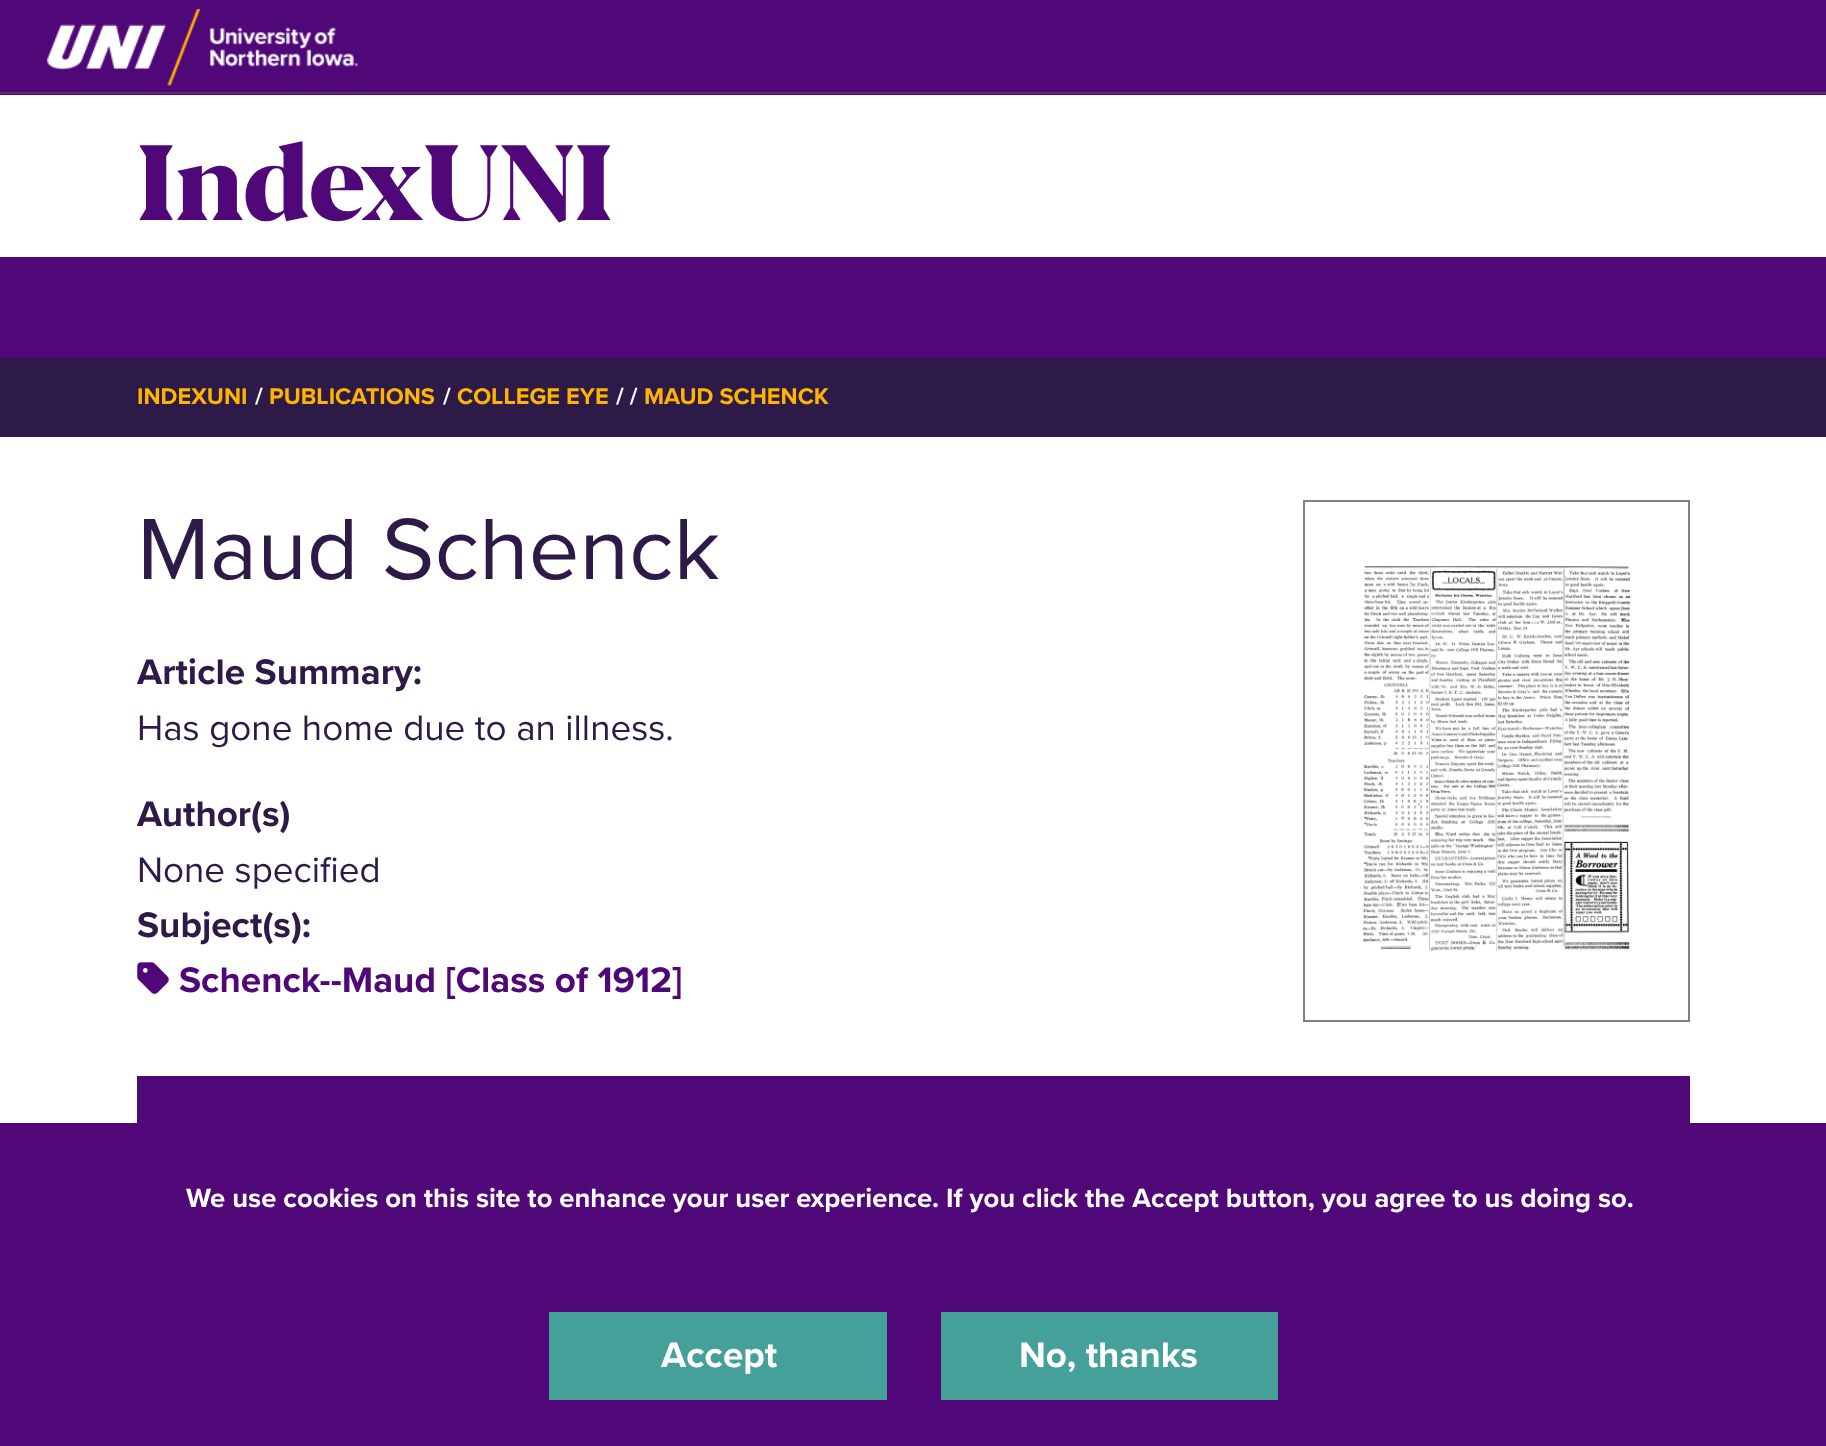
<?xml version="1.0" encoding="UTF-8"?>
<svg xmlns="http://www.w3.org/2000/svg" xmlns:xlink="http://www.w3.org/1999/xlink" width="1826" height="1446">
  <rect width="100%" height="100%" fill="#ffffff" />
  <rect width="1826" height="95" fill="#500778" />
  <rect y="92" width="1826" height="2" fill="#602c7e" />
  <image x="47" y="9" width="311" height="77" xlink:href="image1.png" />
  <rect y="257" width="1826" height="101" fill="#500778" />
  <rect y="358" width="1826" height="79" fill="#2e1a47" />
  <rect x="1304" y="501" width="385" height="520" fill="none" stroke="#808080" stroke-width="2" />
  <image x="1359" y="565" width="272" height="386" xlink:href="image2.png" />
  <image x="137" y="962" width="32" height="32" xlink:href="image3.png" />
  <rect x="137" y="1076" width="1553" height="47" fill="#500778" />
  <rect y="1123" width="1826" height="323" fill="#500778" />
  <rect x="549" y="1312" width="338" height="88" fill="#46a09a" />
  <rect x="941" y="1312" width="337" height="88" fill="#46a09a" />
  <text x="137" y="220" style="font-family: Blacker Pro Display; font-size: 106.5px; font-weight: 900; fill: #500778">IndexUNI</text>
  <text x="137" y="404" style="font-family: Proxima Nova; font-size: 23.5px; font-weight: bold; fill: #ffb500">INDEXUNI</text>
  <text x="255" y="404" style="font-family: Proxima Nova; font-size: 23.5px; font-weight: bold; fill: #ffffff">/</text>
  <text x="269" y="404" style="font-family: Proxima Nova; font-size: 23.5px; font-weight: bold; fill: #ffb500">PUBLICATIONS</text>
  <text x="443" y="404" style="font-family: Proxima Nova; font-size: 23.5px; font-weight: bold; fill: #ffffff">/</text>
  <text x="457" y="404" style="font-family: Proxima Nova; font-size: 23.5px; font-weight: bold; fill: #ffb500">COLLEGE EYE</text>
  <text x="616" y="404" style="font-family: Proxima Nova; font-size: 23.5px; font-weight: bold; fill: #ffffff">/ /</text>
  <text x="644" y="404" style="font-family: Proxima Nova; font-size: 23.5px; font-weight: bold; fill: #ffb500">MAUD SCHENCK</text>
  <text x="137" y="579" style="font-family: Proxima Nova; font-size: 90px; fill: #2e1a47">Maud Schenck</text>
  <text x="137" y="684" style="font-family: Proxima Nova; font-size: 36.8px; font-weight: bold; fill: #2e1a47">Article Summary:</text>
  <text x="137" y="740" style="font-family: Proxima Nova; font-size: 36.8px; fill: #2e1a47">Has gone home due to an illness.</text>
  <text x="137" y="826" style="font-family: Proxima Nova; font-size: 36.8px; font-weight: bold; fill: #2e1a47">Author(s)</text>
  <text x="137" y="882" style="font-family: Proxima Nova; font-size: 36.8px; fill: #2e1a47">None specified</text>
  <text x="137" y="937" style="font-family: Proxima Nova; font-size: 36.8px; font-weight: bold; fill: #2e1a47">Subject(s):</text>
  <text x="179" y="992" style="font-family: Proxima Nova; font-size: 36.8px; font-weight: bold; fill: #500778">Schenck--Maud [Class of 1912]</text>
  <text x="186" y="1207" style="font-family: Proxima Nova; font-size: 27.4px; font-weight: bold; fill: #ffffff">We use cookies on this site to enhance your user experience. If you click the Accept button, you agree to us doing so.</text>
  <text x="661" y="1367" style="font-family: Proxima Nova; font-size: 36.8px; font-weight: bold; fill: #ffffff">Accept</text>
  <text x="1019" y="1367" style="font-family: Proxima Nova; font-size: 36.8px; font-weight: bold; fill: #ffffff">No, thanks</text>
</svg>
